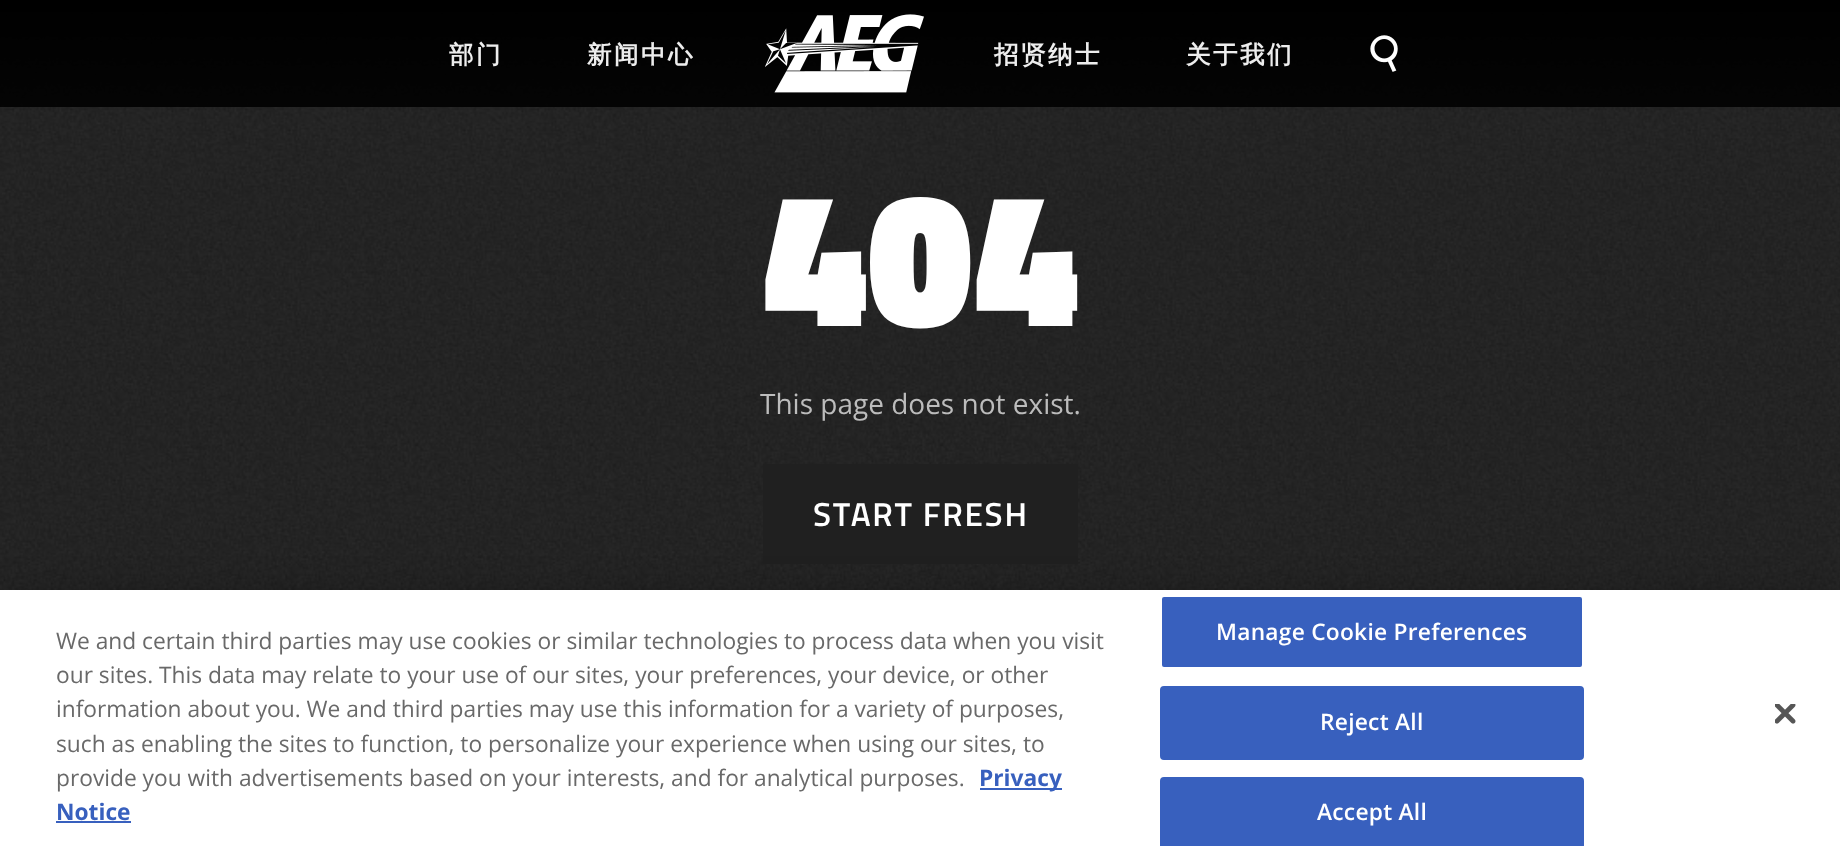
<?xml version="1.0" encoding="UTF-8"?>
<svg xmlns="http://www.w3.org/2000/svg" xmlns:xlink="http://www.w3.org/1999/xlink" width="1840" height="846">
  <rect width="100%" height="100%" fill="#ffffff" />
  <image x="0" y="0" width="1840" height="590" xlink:href="image3.png" />
  <image x="765" y="14" width="159" height="79" xlink:href="image1.png" />
  <image x="1370" y="35" width="28" height="37" xlink:href="image2.png" />
  <rect x="763" y="464" width="315" height="100" fill="#202020" />
  <rect y="590" width="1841" height="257" fill="#000000" fill-opacity="0.2" filter="blur(16px)" />
  <rect y="590" width="1840" height="256" fill="#ffffff" />
  <rect x="980" y="788" width="82" height="2" fill="#3860be" />
  <rect x="56" y="821" width="75" height="2" fill="#3860be" />
  <rect x="1161" y="596" width="422" height="72" rx="3" fill="#3860be" stroke="#ffffff" stroke-width="2" />
  <rect x="1161" y="687" width="422" height="72" rx="3" fill="#3860be" stroke="#3860be" stroke-width="2" />
  <rect x="1161" y="778" width="422" height="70" rx="3" fill="#3860be" stroke="#3860be" stroke-width="2" />
  <image x="1775" y="704" width="21" height="20" xlink:href="image4.png" />
  <text x="449" y="63" style="font-family: WenQuanYi Zen Hei; font-size: 24.5px; font-weight: bold; letter-spacing: 2.5px; fill: #ededed">部门</text>
  <text x="587" y="63" style="font-family: WenQuanYi Zen Hei; font-size: 24.5px; font-weight: bold; letter-spacing: 2.5px; fill: #ededed">新闻中心</text>
  <text x="994" y="63" style="font-family: WenQuanYi Zen Hei; font-size: 24.5px; font-weight: bold; letter-spacing: 2.5px; fill: #ededed">招贤纳士</text>
  <text x="1186" y="63" style="font-family: WenQuanYi Zen Hei; font-size: 24.5px; font-weight: bold; letter-spacing: 2.5px; fill: #ededed">关于我们</text>
  <text x="762" y="326" style="font-family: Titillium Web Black; font-size: 192px; font-weight: 900; fill: #ffffff">404</text>
  <text x="760" y="414" style="font-family: Open Sans; font-size: 28px; fill: #bcbcbc">This page does not exist.</text>
  <text x="813" y="526" style="font-family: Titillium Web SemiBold; font-size: 33.25px; font-weight: 600; letter-spacing: 1.75px; fill: #ffffff">START FRESH</text>
  <text x="56" y="649" style="font-family: Open Sans; font-size: 22.75px; fill: #696969">We and certain third parties may use cookies or similar technologies to process data when you visit</text>
  <text x="56" y="683" style="font-family: Open Sans; font-size: 22.75px; fill: #696969">our sites. This data may relate to your use of our sites, your preferences, your device, or other</text>
  <text x="56" y="717" style="font-family: Open Sans; font-size: 22.75px; fill: #696969">information about you. We and third parties may use this information for a variety of purposes,</text>
  <text x="56" y="752" style="font-family: Open Sans; font-size: 22.75px; fill: #696969">such as enabling the sites to function, to personalize your experience when using our sites, to</text>
  <text x="56" y="786" style="font-family: Open Sans; font-size: 22.75px; fill: #696969">provide you with advertisements based on your interests, and for analytical purposes.</text>
  <text x="979" y="786" style="font-family: Open Sans; font-size: 22.75px; font-weight: bold; fill: #3860be">Privacy</text>
  <text x="56" y="820" style="font-family: Open Sans; font-size: 22.75px; font-weight: bold; fill: #3860be">Notice</text>
  <text x="1216" y="640" style="font-family: Open Sans; font-size: 22.75px; font-weight: 600; letter-spacing: 0.25px; fill: #ffffff">Manage Cookie Preferences</text>
  <text x="1320" y="730" style="font-family: Open Sans; font-size: 22.75px; font-weight: 600; letter-spacing: 0.25px; fill: #ffffff">Reject All</text>
  <text x="1317" y="820" style="font-family: Open Sans; font-size: 22.75px; font-weight: 600; letter-spacing: 0.25px; fill: #ffffff">Accept All</text>
</svg>
